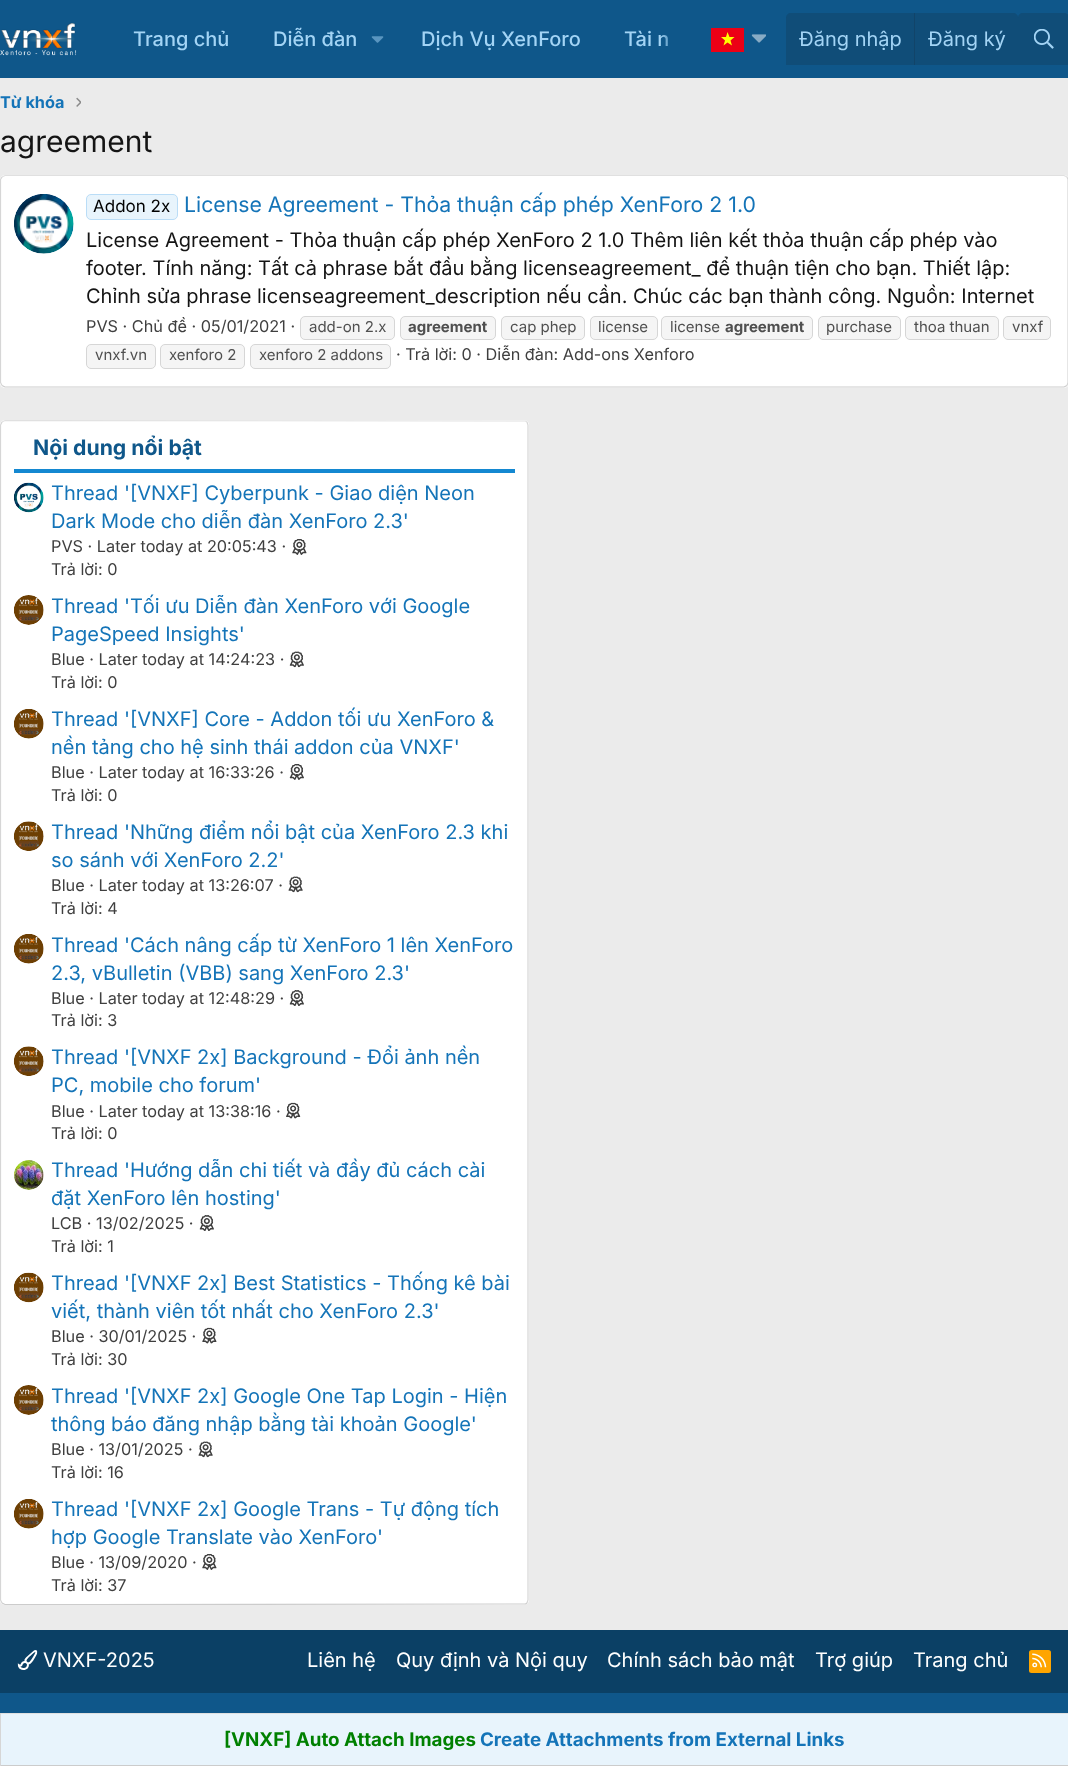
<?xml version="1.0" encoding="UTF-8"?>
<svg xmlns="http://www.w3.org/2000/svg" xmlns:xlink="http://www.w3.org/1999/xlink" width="1068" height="1766">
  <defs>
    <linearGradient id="g1" gradientUnits="userSpaceOnUse" x1="661" y1="39" x2="711" y2="39"><stop offset="0" stop-color="#0f578a" stop-opacity="0" /><stop offset="0.33" stop-color="#0f578a" /></linearGradient>
  </defs>
  <rect width="100%" height="100%" fill="#ebebeb" />
  <rect width="1068" height="78" fill="#0f578a" />
  <image x="0" y="22" width="77" height="34" xlink:href="image1.png" />
  <image x="371" y="36" width="13" height="7" xlink:href="image2.png" />
  <rect x="711" y="28" width="33" height="24" fill="#ec0015" />
  <path d="M 732 45.5 l -4.5 -3 l -4 3 l 1.5 -5 l -4 -3.5 h 5 l 1.5 -5 l 2 5 h 5 l -4 3.5 z" fill="#ffff00" fill-rule="evenodd" />
  <image x="751" y="34" width="15" height="9" xlink:href="image3.png" />
  <path d="M 791 13 h 222 c 3 0 5 2 5 5 v 47 h -232 v -47 c 0 -3 2 -5 5 -5 z" fill="#104d78" />
  <rect x="914" y="13" width="1" height="52" fill="#114469" />
  <path d="M 1023 13 h 41 c 3 0 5 2 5 5 v 47 h -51 v -47 c 0 -3 2 -5 5 -5 z" fill="#104d78" />
  <image x="1034" y="29" width="20" height="20" xlink:href="image4.png" />
  <image x="76" y="97" width="5" height="10" xlink:href="image5.png" />
  <rect y="175" width="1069" height="213" rx="5" fill="#ffffff" />
  <path d="M 2 177 l 3 -1.5 h 1059 l 3 1.5" fill="none" stroke="#e0e0e0" stroke-width="1.2" />
  <path d="M 1067 177 l 1 2.5 v 169.5 v 33.5 l -1 3" fill="none" stroke="#d6d6d6" stroke-width="1.2" />
  <path d="M 1067 385.5 l -3 1.5 h -1059 l -3 -1.5" fill="none" stroke="#cccccc" stroke-width="1.2" />
  <path d="M 2 385.5 l -1.5 -3 v -203 l 1.5 -2.5" fill="none" stroke="#d6d6d6" stroke-width="1.2" />
  <image x="14" y="194" width="60" height="60" xlink:href="image6.png" />
  <rect x="86.5" y="194.5" width="91" height="25" rx="4.5" fill="#e8f4fc" stroke="#baddf7" />
  <rect x="300.5" y="316.5" width="94" height="23" rx="4.5" fill="#f5f5f5" stroke="#d6d6d6" />
  <rect x="400.5" y="316.5" width="95" height="23" rx="4.5" fill="#f5f5f5" stroke="#d6d6d6" />
  <rect x="501.5" y="316.5" width="83" height="23" rx="4.5" fill="#f5f5f5" stroke="#d6d6d6" />
  <rect x="590.5" y="316.5" width="67" height="23" rx="4.5" fill="#f5f5f5" stroke="#d6d6d6" />
  <rect x="661.5" y="316.5" width="151" height="23" rx="4.5" fill="#f5f5f5" stroke="#d6d6d6" />
  <rect x="818.5" y="316.5" width="82" height="23" rx="4.5" fill="#f5f5f5" stroke="#d6d6d6" />
  <rect x="905.5" y="316.5" width="93" height="23" rx="4.5" fill="#f5f5f5" stroke="#d6d6d6" />
  <rect x="1003.5" y="316.5" width="47" height="23" rx="4.5" fill="#f5f5f5" stroke="#d6d6d6" />
  <rect x="86.5" y="344.5" width="69" height="24" rx="4.5" fill="#f5f5f5" stroke="#d6d6d6" />
  <rect x="160.5" y="344.5" width="84" height="24" rx="4.5" fill="#f5f5f5" stroke="#d6d6d6" />
  <rect x="250.5" y="344.5" width="140" height="24" rx="4.5" fill="#f5f5f5" stroke="#d6d6d6" />
  <rect y="420" width="529" height="1185" rx="5" fill="#ffffff" />
  <path d="M 2 422 l 3 -1.5 l 520.5 0.5 l 1.5 1" fill="none" stroke="#e0e0e0" stroke-width="1.2" />
  <path d="M 527 422 l 1 3 v 1175 l -1 3" fill="none" stroke="#d6d6d6" stroke-width="1.2" />
  <path d="M 527 1603 l -1.5 1 l -434 0.5 h -86.5 l -3 -1.5" fill="none" stroke="#cccccc" stroke-width="1.2" />
  <path d="M 2 1603 l -1.5 -3 v -1175 l 1.5 -3" fill="none" stroke="#d6d6d6" stroke-width="1.2" />
  <rect x="14" y="469" width="501" height="4" fill="#1488d1" />
  <image x="14" y="482" width="30" height="31" xlink:href="image7.png" />
  <image x="292" y="539" width="15" height="16" xlink:href="image8.png" />
  <image x="14" y="595" width="30" height="30" xlink:href="image9.png" />
  <image x="289" y="651" width="15" height="17" xlink:href="image10.png" />
  <image x="14" y="709" width="30" height="30" xlink:href="image11.png" />
  <image x="289" y="764" width="15" height="16" xlink:href="image12.png" />
  <image x="13" y="821" width="31" height="30" xlink:href="image13.png" />
  <image x="288" y="876" width="15" height="17" xlink:href="image14.png" />
  <image x="14" y="934" width="30" height="30" xlink:href="image11.png" />
  <image x="289" y="990" width="15" height="16" xlink:href="image15.png" />
  <image x="13" y="1046" width="31" height="30" xlink:href="image13.png" />
  <image x="286" y="1102" width="15" height="17" xlink:href="image16.png" />
  <image x="14" y="1160" width="30" height="30" xlink:href="image17.png" />
  <image x="199" y="1215" width="15" height="16" xlink:href="image15.png" />
  <image x="14" y="1272" width="30" height="31" xlink:href="image18.png" />
  <image x="202" y="1327" width="15" height="17" xlink:href="image19.png" />
  <image x="14" y="1385" width="30" height="30" xlink:href="image9.png" />
  <image x="198" y="1441" width="15" height="17" xlink:href="image14.png" />
  <image x="14" y="1499" width="30" height="30" xlink:href="image20.png" />
  <image x="202" y="1554" width="15" height="16" xlink:href="image8.png" />
  <rect y="1630" width="1068" height="63" fill="#0b4065" />
  <image x="17" y="1650" width="21" height="20" xlink:href="image21.png" />
  <rect x="1029" y="1650" width="22" height="23" rx="2.5" fill="#ffa500" />
  <image x="1032" y="1653" width="15" height="15" xlink:href="image22.png" />
  <rect y="1693" width="1068" height="20" fill="#0f578a" />
  <rect x="1" y="1714" width="1067" height="51" fill="#e8f4fc" />
  <rect y="1713" width="1068" height="1" fill="#e0e0e0" />
  <rect y="1765" width="1068" height="1" fill="#cccccc" />
  <rect y="1713" width="1" height="53" fill="#d6d6d6" />
  <text x="133" y="46" style="font-family: Inter; font-size: 20px; font-weight: 500; fill: #a3d4f5">Trang chủ</text>
  <text x="273" y="46" style="font-family: Inter; font-size: 20px; font-weight: 500; fill: #a3d4f5">Diễn đàn</text>
  <text x="421" y="46" style="font-family: Inter; font-size: 20px; font-weight: 500; fill: #a3d4f5">Dịch Vụ XenForo</text>
  <text x="624" y="46" style="font-family: Inter; font-size: 20px; font-weight: 500; fill: #a3d4f5">Tài n</text>
  <rect x="661" y="35" width="8" height="11" fill="url(#g1)" />
  <text x="799" y="46" style="font-family: Inter; font-size: 20px; fill: #a3d4f5">Đăng nhập</text>
  <text x="928" y="46" style="font-family: Inter; font-size: 20px; fill: #a3d4f5">Đăng ký</text>
  <text x="0" y="108" style="font-family: Inter; font-size: 16.25px; font-weight: bold; fill: #1474b8">Từ khóa</text>
  <text x="0" y="152" style="font-family: Inter; font-size: 30px; fill: #141414">agreement</text>
  <text x="93" y="212" style="font-family: Inter; font-size: 17px; fill: #000000">Addon 2x</text>
  <text x="184" y="212" style="font-family: Inter; font-size: 21.25px; fill: #1474b8">License Agreement - Thỏa thuận cấp phép XenForo 2 1.0</text>
  <text x="86" y="247" style="font-family: Inter; font-size: 20px; fill: #141414">License Agreement - Thỏa thuận cấp phép XenForo 2 1.0 Thêm liên kết thỏa thuận cấp phép vào</text>
  <text x="86" y="275" style="font-family: Inter; font-size: 20px; fill: #141414">footer. Tính năng: Tất cả phrase bắt đầu bằng licenseagreement_ để thuận tiện cho bạn. Thiết lập:</text>
  <text x="86" y="303" style="font-family: Inter; font-size: 20px; fill: #141414">Chỉnh sửa phrase licenseagreement_description nếu cần. Chúc các bạn thành công. Nguồn: Internet</text>
  <text x="86" y="332" style="font-family: Inter; font-size: 16.25px; fill: #3f3f3f">PVS · Chủ đề · 05/01/2021 ·</text>
  <text x="309" y="332" style="font-family: Inter; font-size: 15px; fill: #4f4f4f">add-on 2.x</text>
  <text x="408" y="332" style="font-family: Inter; font-size: 15px; font-weight: bold; fill: #4f4f4f">agreement</text>
  <text x="510" y="332" style="font-family: Inter; font-size: 15px; fill: #4f4f4f">cap phep</text>
  <text x="598" y="332" style="font-family: Inter; font-size: 15px; fill: #4f4f4f">license</text>
  <text x="670" y="332" style="font-family: Inter; font-size: 15px; fill: #4f4f4f">license</text>
  <text x="725" y="332" style="font-family: Inter; font-size: 15px; font-weight: bold; fill: #4f4f4f">agreement</text>
  <text x="826" y="332" style="font-family: Inter; font-size: 15px; fill: #4f4f4f">purchase</text>
  <text x="914" y="332" style="font-family: Inter; font-size: 15px; fill: #4f4f4f">thoa thuan</text>
  <text x="1012" y="332" style="font-family: Inter; font-size: 15px; fill: #4f4f4f">vnxf</text>
  <text x="95" y="360" style="font-family: Inter; font-size: 15px; fill: #4f4f4f">vnxf.vn</text>
  <text x="169" y="360" style="font-family: Inter; font-size: 15px; fill: #4f4f4f">xenforo 2</text>
  <text x="259" y="360" style="font-family: Inter; font-size: 15px; fill: #4f4f4f">xenforo 2 addons</text>
  <text x="396" y="360" style="font-family: Inter; font-size: 16.25px; fill: #3f3f3f">· Trả lời: 0 · Diễn đàn: Add-ons Xenforo</text>
  <text x="33" y="455" style="font-family: Inter; font-size: 21.25px; font-weight: bold; fill: #0f578a">Nội dung nổi bật</text>
  <text x="51" y="500" style="font-family: Inter; font-size: 20px; fill: #1474b8">Thread '[VNXF] Cyberpunk - Giao diện Neon</text>
  <text x="51" y="528" style="font-family: Inter; font-size: 20px; fill: #1474b8">Dark Mode cho diễn đàn XenForo 2.3'</text>
  <text x="51" y="552" style="font-family: Inter; font-size: 16.25px; fill: #3f3f3f">PVS · Later today at 20:05:43 ·</text>
  <text x="51" y="575" style="font-family: Inter; font-size: 16.25px; fill: #3f3f3f">Trả lời: 0</text>
  <text x="51" y="613" style="font-family: Inter; font-size: 20px; fill: #1474b8">Thread 'Tối ưu Diễn đàn XenForo với Google</text>
  <text x="51" y="641" style="font-family: Inter; font-size: 20px; fill: #1474b8">PageSpeed Insights'</text>
  <text x="51" y="665" style="font-family: Inter; font-size: 16.25px; fill: #3f3f3f">Blue · Later today at 14:24:23 ·</text>
  <text x="51" y="688" style="font-family: Inter; font-size: 16.25px; fill: #3f3f3f">Trả lời: 0</text>
  <text x="51" y="726" style="font-family: Inter; font-size: 20px; fill: #1474b8">Thread '[VNXF] Core - Addon tối ưu XenForo &amp;</text>
  <text x="51" y="754" style="font-family: Inter; font-size: 20px; fill: #1474b8">nền tảng cho hệ sinh thái addon của VNXF'</text>
  <text x="51" y="778" style="font-family: Inter; font-size: 16.25px; fill: #3f3f3f">Blue · Later today at 16:33:26 ·</text>
  <text x="51" y="801" style="font-family: Inter; font-size: 16.25px; fill: #3f3f3f">Trả lời: 0</text>
  <text x="51" y="839" style="font-family: Inter; font-size: 20px; fill: #1474b8">Thread 'Những điểm nổi bật của XenForo 2.3 khi</text>
  <text x="51" y="867" style="font-family: Inter; font-size: 20px; fill: #1474b8">so sánh với XenForo 2.2'</text>
  <text x="51" y="891" style="font-family: Inter; font-size: 16.25px; fill: #3f3f3f">Blue · Later today at 13:26:07 ·</text>
  <text x="51" y="914" style="font-family: Inter; font-size: 16.25px; fill: #3f3f3f">Trả lời: 4</text>
  <text x="51" y="952" style="font-family: Inter; font-size: 20px; fill: #1474b8">Thread 'Cách nâng cấp từ XenForo 1 lên XenForo</text>
  <text x="51" y="980" style="font-family: Inter; font-size: 20px; fill: #1474b8">2.3, vBulletin (VBB) sang XenForo 2.3'</text>
  <text x="51" y="1004" style="font-family: Inter; font-size: 16.25px; fill: #3f3f3f">Blue · Later today at 12:48:29 ·</text>
  <text x="51" y="1026" style="font-family: Inter; font-size: 16.25px; fill: #3f3f3f">Trả lời: 3</text>
  <text x="51" y="1064" style="font-family: Inter; font-size: 20px; fill: #1474b8">Thread '[VNXF 2x] Background - Đổi ảnh nền</text>
  <text x="51" y="1092" style="font-family: Inter; font-size: 20px; fill: #1474b8">PC, mobile cho forum'</text>
  <text x="51" y="1117" style="font-family: Inter; font-size: 16.25px; fill: #3f3f3f">Blue · Later today at 13:38:16 ·</text>
  <text x="51" y="1139" style="font-family: Inter; font-size: 16.25px; fill: #3f3f3f">Trả lời: 0</text>
  <text x="51" y="1177" style="font-family: Inter; font-size: 20px; fill: #1474b8">Thread 'Hướng dẫn chi tiết và đầy đủ cách cài</text>
  <text x="51" y="1205" style="font-family: Inter; font-size: 20px; fill: #1474b8">đặt XenForo lên hosting'</text>
  <text x="51" y="1229" style="font-family: Inter; font-size: 16.25px; fill: #3f3f3f">LCB · 13/02/2025 ·</text>
  <text x="51" y="1252" style="font-family: Inter; font-size: 16.25px; fill: #3f3f3f">Trả lời: 1</text>
  <text x="51" y="1290" style="font-family: Inter; font-size: 20px; fill: #1474b8">Thread '[VNXF 2x] Best Statistics - Thống kê bài</text>
  <text x="51" y="1318" style="font-family: Inter; font-size: 20px; fill: #1474b8">viết, thành viên tốt nhất cho XenForo 2.3'</text>
  <text x="51" y="1342" style="font-family: Inter; font-size: 16.25px; fill: #3f3f3f">Blue · 30/01/2025 ·</text>
  <text x="51" y="1365" style="font-family: Inter; font-size: 16.25px; fill: #3f3f3f">Trả lời: 30</text>
  <text x="51" y="1403" style="font-family: Inter; font-size: 20px; fill: #1474b8">Thread '[VNXF 2x] Google One Tap Login - Hiện</text>
  <text x="51" y="1431" style="font-family: Inter; font-size: 20px; fill: #1474b8">thông báo đăng nhập bằng tài khoản Google'</text>
  <text x="51" y="1455" style="font-family: Inter; font-size: 16.25px; fill: #3f3f3f">Blue · 13/01/2025 ·</text>
  <text x="51" y="1478" style="font-family: Inter; font-size: 16.25px; fill: #3f3f3f">Trả lời: 16</text>
  <text x="51" y="1516" style="font-family: Inter; font-size: 20px; fill: #1474b8">Thread '[VNXF 2x] Google Trans - Tự động tích</text>
  <text x="51" y="1544" style="font-family: Inter; font-size: 20px; fill: #1474b8">hợp Google Translate vào XenForo'</text>
  <text x="51" y="1568" style="font-family: Inter; font-size: 16.25px; fill: #3f3f3f">Blue · 13/09/2020 ·</text>
  <text x="51" y="1591" style="font-family: Inter; font-size: 16.25px; fill: #3f3f3f">Trả lời: 37</text>
  <text x="43" y="1667" style="font-family: Inter; font-size: 20px; fill: #ffffff">VNXF-2025</text>
  <text x="307" y="1667" style="font-family: Inter; font-size: 20px; fill: #ffffff">Liên hệ</text>
  <text x="396" y="1667" style="font-family: Inter; font-size: 20px; fill: #ffffff">Quy định và Nội quy</text>
  <text x="607" y="1667" style="font-family: Inter; font-size: 20px; fill: #ffffff">Chính sách bảo mật</text>
  <text x="815" y="1667" style="font-family: Inter; font-size: 20px; fill: #ffffff">Trợ giúp</text>
  <text x="913" y="1667" style="font-family: Inter; font-size: 20px; fill: #ffffff">Trang chủ</text>
  <text x="224" y="1746" style="font-family: Inter; font-size: 18.75px; font-weight: bold; fill: #008000">[VNXF] Auto Attach Images</text>
  <text x="480" y="1746" style="font-family: Inter; font-size: 18.75px; font-weight: bold; fill: #1474b8">Create Attachments from External Links</text>
</svg>
